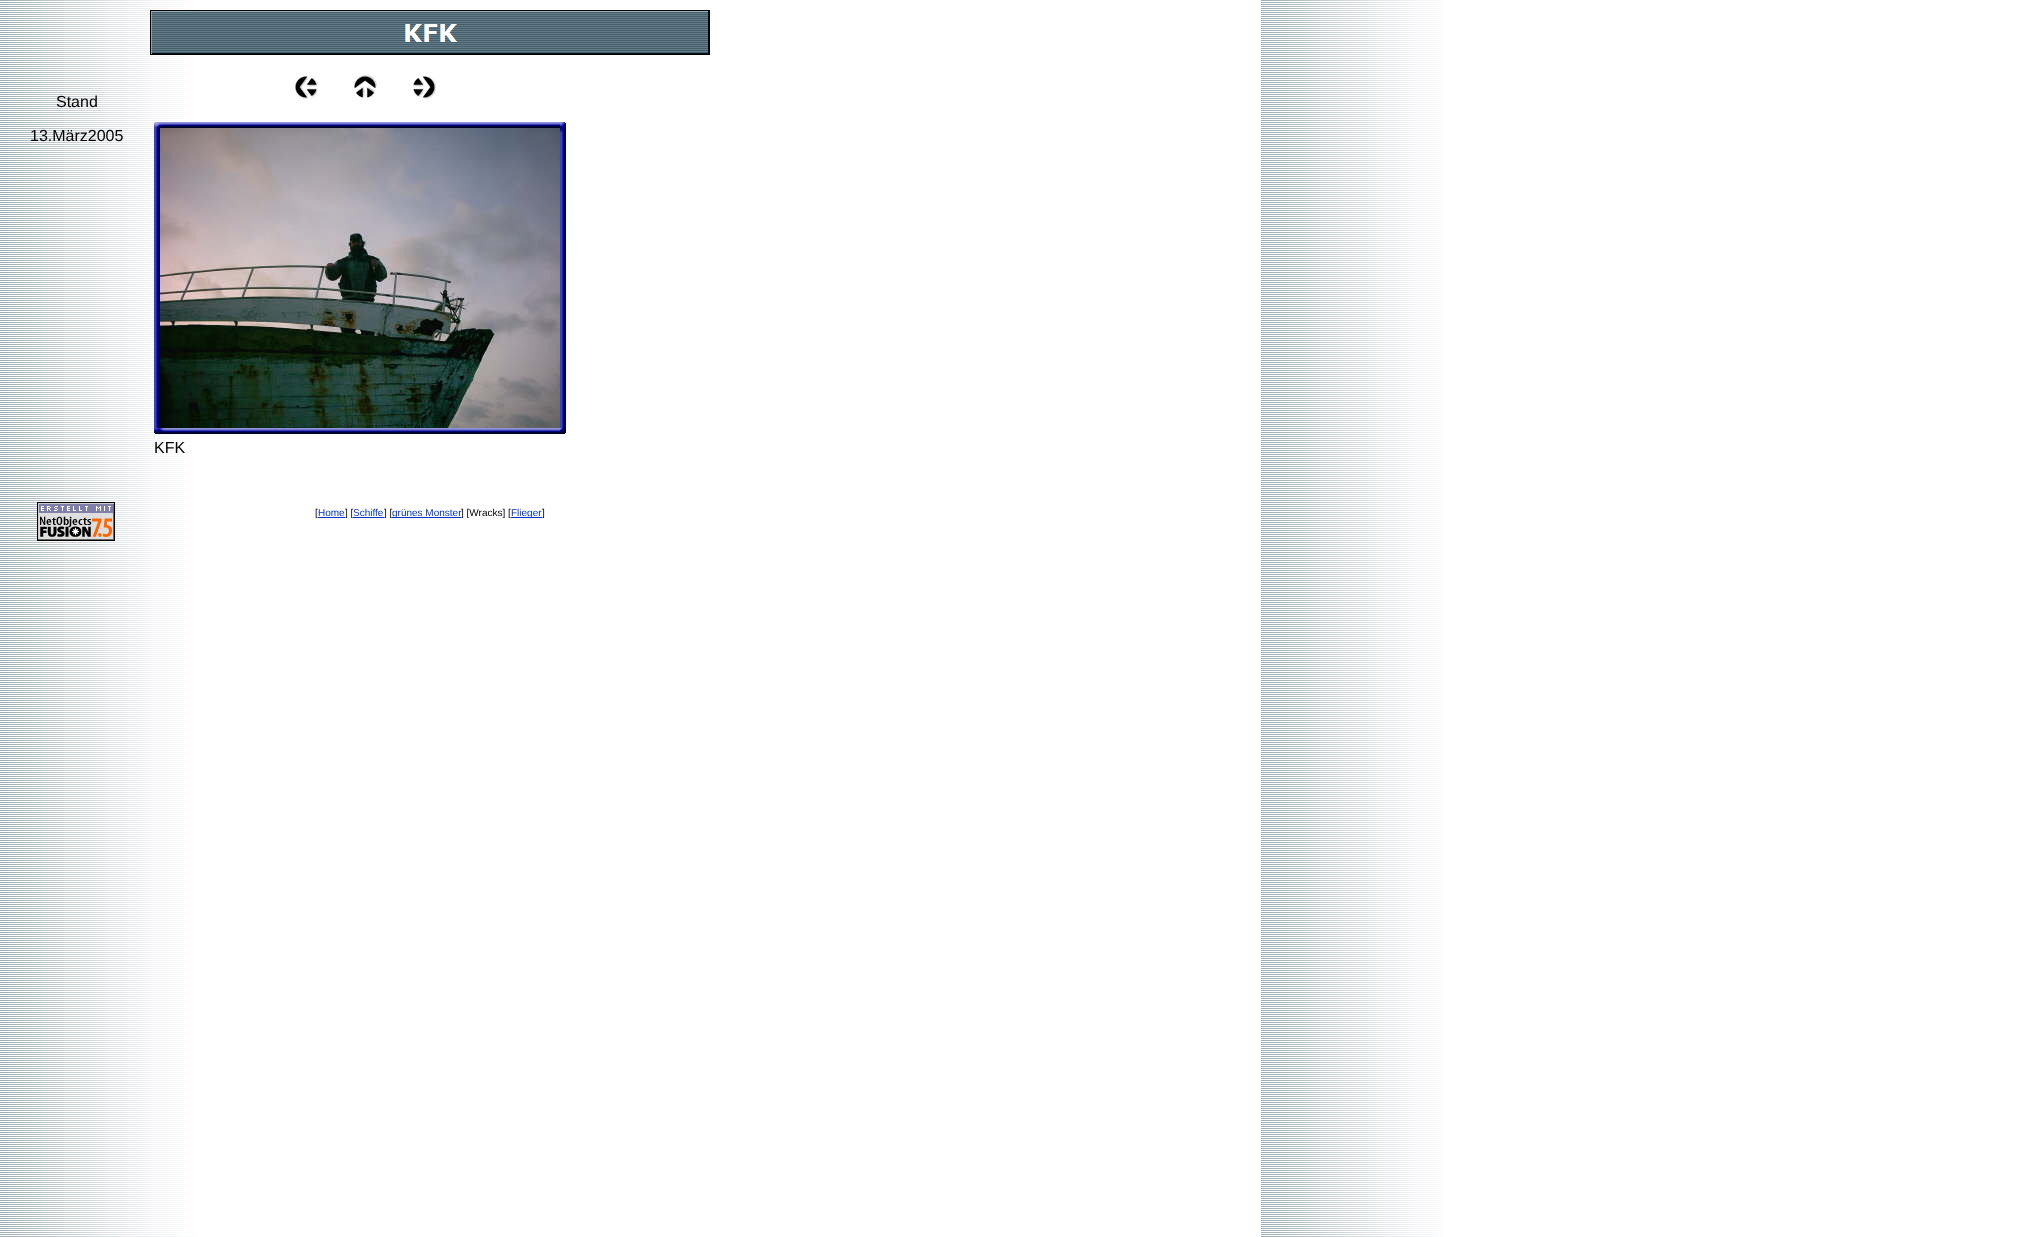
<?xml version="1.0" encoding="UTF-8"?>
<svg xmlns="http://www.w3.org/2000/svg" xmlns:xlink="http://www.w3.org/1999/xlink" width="2018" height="1237">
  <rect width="100%" height="100%" fill="#ffffff" />
  <image x="0" y="0" width="1443" height="1237" xlink:href="image1.png" />
  <image x="37" y="502" width="78" height="39" xlink:href="image2.png" />
  <image x="150" y="10" width="560" height="45" xlink:href="image3.png" />
  <image x="295" y="76" width="23" height="23" xlink:href="image4.png" />
  <image x="354" y="75" width="23" height="23" xlink:href="image5.png" />
  <image x="413" y="76" width="23" height="23" xlink:href="image6.png" />
  <image x="154" y="122" width="6" height="6" xlink:href="image7.png" />
  <image x="160" y="122" width="400" height="6" xlink:href="image8.png" />
  <image x="560" y="122" width="6" height="6" xlink:href="image9.png" />
  <image x="154" y="128" width="6" height="300" xlink:href="image10.png" />
  <image x="160" y="128" width="400" height="300" xlink:href="image11.png" />
  <image x="560" y="128" width="6" height="300" xlink:href="image12.png" />
  <image x="154" y="428" width="6" height="6" xlink:href="image13.png" />
  <image x="160" y="428" width="400" height="6" xlink:href="image14.png" />
  <image x="560" y="428" width="6" height="6" xlink:href="image15.png" />
  <rect x="392" y="517" width="69" height="1" fill="#0033cc" />
  <text x="56" y="107" style="font-family: Liberation Sans; font-size: 16px; fill: #000000">Stand</text>
  <text x="30" y="141" style="font-family: Liberation Sans; font-size: 16px; fill: #000000">13.März2005</text>
  <text x="154" y="453" style="font-family: Liberation Sans; font-size: 16px; fill: #000000">KFK</text>
  <text x="315" y="516" style="font-family: Liberation Sans; font-size: 10px; fill: #000000">[</text>
  <text x="318" y="516" style="font-family: Liberation Sans; font-size: 10px; fill: #0033cc">Home</text>
  <rect x="318" y="517" width="27" height="1" fill="#0033cc" />
  <text x="345" y="516" style="font-family: Liberation Sans; font-size: 10px; fill: #000000">] [</text>
  <text x="353" y="516" style="font-family: Liberation Sans; font-size: 10px; fill: #0033cc">Schiffe</text>
  <rect x="353" y="517" width="31" height="1" fill="#0033cc" />
  <text x="384" y="516" style="font-family: Liberation Sans; font-size: 10px; fill: #000000">] [</text>
  <text x="392" y="516" style="font-family: Liberation Sans; font-size: 10px; fill: #0033cc">grünes Monster</text>
  <text x="461" y="516" style="font-family: Liberation Sans; font-size: 10px; fill: #000000">] [Wracks] [</text>
  <rect x="511" y="517" width="31" height="1" fill="#0033cc" />
  <text x="511" y="516" style="font-family: Liberation Sans; font-size: 10px; fill: #0033cc">Flieger</text>
  <text x="542" y="516" style="font-family: Liberation Sans; font-size: 10px; fill: #000000">]</text>
</svg>
